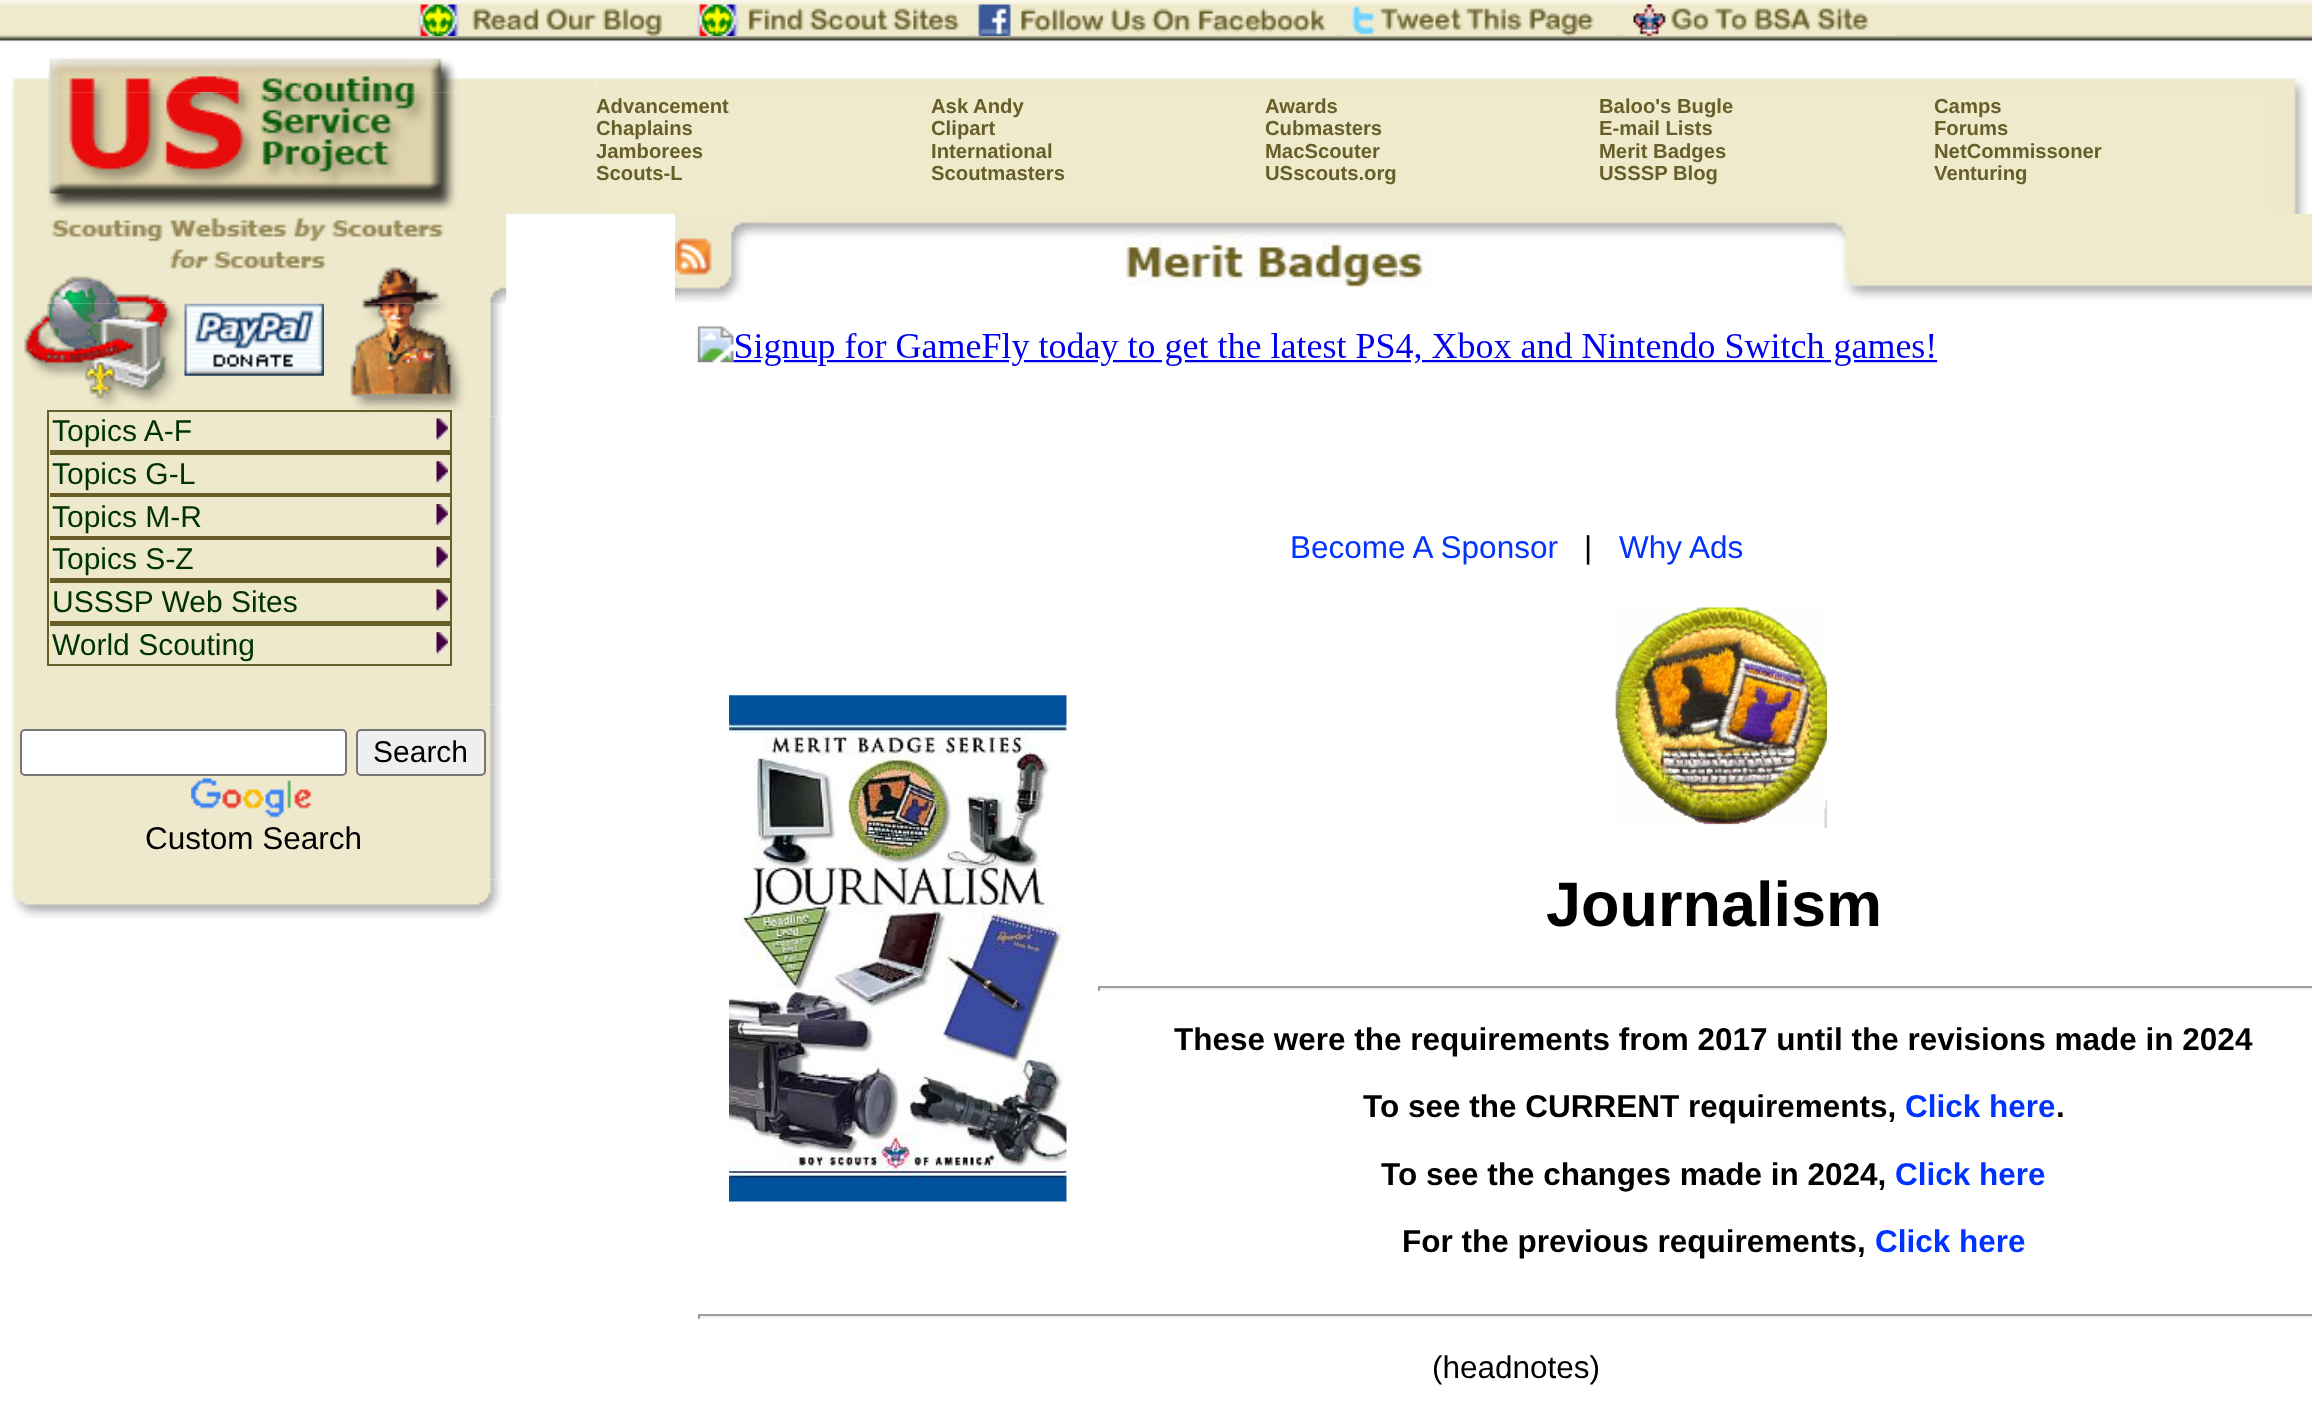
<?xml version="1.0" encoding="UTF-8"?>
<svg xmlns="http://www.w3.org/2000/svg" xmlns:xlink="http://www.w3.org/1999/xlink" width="2312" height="1421">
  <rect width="100%" height="100%" fill="#ffffff" />
  <image x="0" y="0" width="2312" height="42" xlink:href="image1.png" />
  <image x="418" y="4" width="271" height="32" xlink:href="image2.png" />
  <image x="697" y="4" width="271" height="32" xlink:href="image3.png" />
  <image x="976" y="4" width="361" height="32" xlink:href="image4.png" />
  <image x="1345" y="4" width="271" height="32" xlink:href="image5.png" />
  <image x="1624" y="4" width="271" height="32" xlink:href="image6.png" />
  <image x="11" y="92" width="495" height="122" xlink:href="image11.png" />
  <rect x="506" y="92" width="91" height="122" fill="#eee9cc" />
  <image x="11" y="58" width="496" height="35" xlink:href="image7.png" />
  <image x="506" y="78" width="90" height="14" xlink:href="image8.png" />
  <image x="596" y="78" width="1690" height="14" xlink:href="image9.png" />
  <image x="2286" y="77" width="26" height="15" xlink:href="image10.png" />
  <image x="13" y="92" width="493" height="122" xlink:href="image12.png" />
  <rect x="597" y="92" width="1671" height="122" fill="#efeacc" />
  <image x="2268" y="92" width="39" height="122" xlink:href="image13.png" />
  <image x="765" y="213" width="1547" height="88" xlink:href="image27.png" />
  <image x="2268" y="92" width="44" height="122" xlink:href="image14.png" />
  <image x="11" y="303" width="492" height="114" xlink:href="image20.png" />
  <image x="11" y="416" width="491" height="289" xlink:href="image22.png" />
  <rect x="48" y="411" width="403" height="254" fill="none" stroke="#675e2a" stroke-width="2" />
  <rect x="50" y="416" width="400" height="1" fill="#eee9cc" />
  <rect x="50" y="450" width="400" height="5" fill="#675e2a" />
  <image x="436" y="418" width="12" height="23" xlink:href="image15.png" />
  <rect x="50" y="493" width="400" height="4" fill="#675e2a" />
  <image x="436" y="461" width="12" height="23" xlink:href="image16.png" />
  <rect x="50" y="536" width="400" height="4" fill="#675e2a" />
  <image x="436" y="504" width="12" height="23" xlink:href="image17.png" />
  <rect x="50" y="578" width="400" height="5" fill="#675e2a" />
  <image x="436" y="546" width="12" height="24" xlink:href="image18.png" />
  <rect x="50" y="621" width="400" height="5" fill="#675e2a" />
  <image x="436" y="589" width="12" height="23" xlink:href="image15.png" />
  <image x="436" y="632" width="12" height="23" xlink:href="image16.png" />
  <image x="11" y="214" width="496" height="90" xlink:href="image19.png" />
  <image x="184" y="303" width="140" height="73" xlink:href="image21.png" />
  <image x="11" y="704" width="491" height="176" xlink:href="image23.png" />
  <rect x="21" y="730" width="325" height="45" rx="4" fill="#ffffff" stroke="#767676" stroke-width="2" />
  <rect x="357" y="730" width="128" height="45" rx="4" fill="#efefef" stroke="#767676" stroke-width="2" />
  <image x="191" y="778" width="121" height="40" xlink:href="image24.png" />
  <image x="10" y="879" width="493" height="40" xlink:href="image25.png" />
  <image x="675" y="214" width="90" height="89" xlink:href="image26.png" />
  <image x="697" y="326" width="1241" height="40" xlink:href="image28.png" />
  <image x="729" y="695" width="338" height="507" xlink:href="image29.png" />
  <image x="1614" y="607" width="213" height="221" xlink:href="image30.png" />
  <rect x="1098" y="986" width="1214" height="2" fill="#9f9f9f" />
  <rect x="1098" y="988" width="1214" height="2" fill="#eeeeee" />
  <rect x="1098" y="986" width="2" height="5" fill="#9f9f9f" />
  <rect x="698" y="1314" width="1614" height="2" fill="#9f9f9f" />
  <rect x="698" y="1316" width="1614" height="2" fill="#eeeeee" />
  <rect x="698" y="1314" width="2" height="5" fill="#9f9f9f" />
  <text x="596" y="113" style="font-family: Liberation Sans; font-size: 20.25px; font-weight: bold; fill: #675e2a">Advancement</text>
  <text x="931" y="113" style="font-family: Liberation Sans; font-size: 20.25px; font-weight: bold; fill: #675e2a">Ask Andy</text>
  <text x="1265" y="113" style="font-family: Liberation Sans; font-size: 20.25px; font-weight: bold; fill: #675e2a">Awards</text>
  <text x="1599" y="113" style="font-family: Liberation Sans; font-size: 20.25px; font-weight: bold; fill: #675e2a">Baloo's Bugle</text>
  <text x="1934" y="113" style="font-family: Liberation Sans; font-size: 20.25px; font-weight: bold; fill: #675e2a">Camps</text>
  <text x="596" y="135" style="font-family: Liberation Sans; font-size: 20.25px; font-weight: bold; fill: #675e2a">Chaplains</text>
  <text x="931" y="135" style="font-family: Liberation Sans; font-size: 20.25px; font-weight: bold; fill: #675e2a">Clipart</text>
  <text x="1265" y="135" style="font-family: Liberation Sans; font-size: 20.25px; font-weight: bold; fill: #675e2a">Cubmasters</text>
  <text x="1599" y="135" style="font-family: Liberation Sans; font-size: 20.25px; font-weight: bold; fill: #675e2a">E-mail Lists</text>
  <text x="1934" y="135" style="font-family: Liberation Sans; font-size: 20.25px; font-weight: bold; fill: #675e2a">Forums</text>
  <text x="596" y="158" style="font-family: Liberation Sans; font-size: 20.25px; font-weight: bold; fill: #675e2a">Jamborees</text>
  <text x="931" y="158" style="font-family: Liberation Sans; font-size: 20.25px; font-weight: bold; fill: #675e2a">International</text>
  <text x="1265" y="158" style="font-family: Liberation Sans; font-size: 20.25px; font-weight: bold; fill: #675e2a">MacScouter</text>
  <text x="1599" y="158" style="font-family: Liberation Sans; font-size: 20.25px; font-weight: bold; fill: #675e2a">Merit Badges</text>
  <text x="1934" y="158" style="font-family: Liberation Sans; font-size: 20.25px; font-weight: bold; fill: #675e2a">NetCommissoner</text>
  <text x="596" y="180" style="font-family: Liberation Sans; font-size: 20.25px; font-weight: bold; fill: #675e2a">Scouts-L</text>
  <text x="931" y="180" style="font-family: Liberation Sans; font-size: 20.25px; font-weight: bold; fill: #675e2a">Scoutmasters</text>
  <text x="1265" y="180" style="font-family: Liberation Sans; font-size: 20.25px; font-weight: bold; fill: #675e2a">USscouts.org</text>
  <text x="1599" y="180" style="font-family: Liberation Sans; font-size: 20.25px; font-weight: bold; fill: #675e2a">USSSP Blog</text>
  <text x="1934" y="180" style="font-family: Liberation Sans; font-size: 20.25px; font-weight: bold; fill: #675e2a">Venturing</text>
  <text x="52" y="441" style="font-family: Liberation Sans; font-size: 30px; fill: #003300">Topics A-F</text>
  <text x="52" y="484" style="font-family: Liberation Sans; font-size: 30px; fill: #003300">Topics G-L</text>
  <text x="52" y="527" style="font-family: Liberation Sans; font-size: 30px; fill: #003300">Topics M-R</text>
  <text x="52" y="569" style="font-family: Liberation Sans; font-size: 30px; fill: #003300">Topics S-Z</text>
  <text x="52" y="612" style="font-family: Liberation Sans; font-size: 30px; fill: #003300">USSSP Web Sites</text>
  <text x="52" y="655" style="font-family: Liberation Sans; font-size: 30px; fill: #003300">World Scouting</text>
  <text x="373" y="762" style="font-family: Liberation Sans; font-size: 30px; fill: #000000">Search</text>
  <text x="145" y="849" style="font-family: Liberation Sans; font-size: 31.5px; fill: #000000">Custom Search</text>
  <text x="1290" y="558" style="font-family: Liberation Sans; font-size: 31.5px; fill: #0033ff">Become A Sponsor</text>
  <text x="1584" y="558" style="font-family: Liberation Sans; font-size: 31.5px; fill: #000000">|</text>
  <text x="1619" y="558" style="font-family: Liberation Sans; font-size: 31.5px; fill: #0033ff">Why Ads</text>
  <text x="1546" y="926" style="font-family: Liberation Sans; font-size: 63px; font-weight: bold; fill: #000000">Journalism</text>
  <text x="1174" y="1050" style="font-family: Liberation Sans; font-size: 31.5px; font-weight: bold; fill: #000000">These were the requirements from 2017 until the revisions made in 2024</text>
  <text x="1363" y="1117" style="font-family: Liberation Sans; font-size: 31.5px; font-weight: bold; fill: #000000">To see the CURRENT requirements,</text>
  <text x="1905" y="1117" style="font-family: Liberation Sans; font-size: 31.5px; font-weight: bold; fill: #0033ff">Click here</text>
  <text x="2056" y="1117" style="font-family: Liberation Sans; font-size: 31.5px; font-weight: bold; fill: #000000">.</text>
  <text x="1381" y="1185" style="font-family: Liberation Sans; font-size: 31.5px; font-weight: bold; fill: #000000">To see the changes made in 2024,</text>
  <text x="1895" y="1185" style="font-family: Liberation Sans; font-size: 31.5px; font-weight: bold; fill: #0033ff">Click here</text>
  <text x="1402" y="1252" style="font-family: Liberation Sans; font-size: 31.5px; font-weight: bold; fill: #000000">For the previous requirements,</text>
  <text x="1875" y="1252" style="font-family: Liberation Sans; font-size: 31.5px; font-weight: bold; fill: #0033ff">Click here</text>
  <text x="1432" y="1378" style="font-family: Liberation Sans; font-size: 31.5px; fill: #000000">(headnotes)</text>
</svg>
